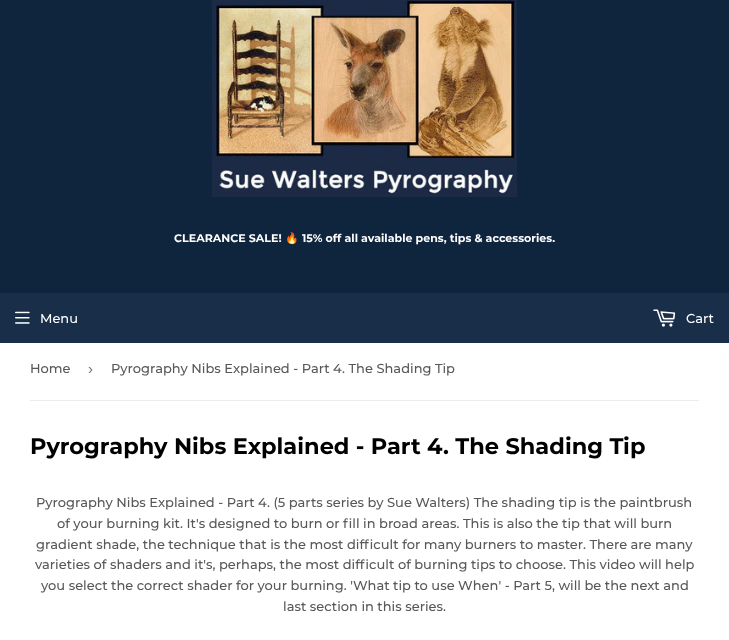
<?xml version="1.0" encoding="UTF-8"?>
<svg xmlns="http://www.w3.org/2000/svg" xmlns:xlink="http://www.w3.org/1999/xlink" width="729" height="640">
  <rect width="100%" height="100%" fill="#ffffff" />
  <rect width="729" height="293" fill="#0f243d" />
  <image x="212" y="0" width="305" height="197" xlink:href="image1.png" />
  <rect y="293" width="729" height="50" fill="#182e49" />
  <image x="15" y="311" width="15" height="13" xlink:href="image2.png" />
  <image x="653" y="309" width="23" height="18" xlink:href="image3.png" />
  <rect x="30" y="400" width="669" height="1" fill="#ececec" />
  <text x="174" y="242" style="font-family: Montserrat; font-size: 11.05px; font-weight: bold; fill: #ffffff">CLEARANCE SALE!</text>
  <text x="285" y="242" style="font-family: Noto Color Emoji; font-size: 11.05px; font-weight: bold; fill: #ffffff">🔥</text>
  <text x="302" y="242" style="font-family: Montserrat; font-size: 11.05px; font-weight: bold; fill: #ffffff">15% off all available pens, tips &amp; accessories.</text>
  <text x="40" y="323" style="font-family: Montserrat; font-size: 13px; font-weight: 500; fill: #ffffff">Menu</text>
  <text x="686" y="323" style="font-family: Montserrat; font-size: 13px; font-weight: 500; fill: #ffffff">Cart</text>
  <text x="30" y="373" style="font-family: Montserrat; font-size: 13px; font-weight: 500; fill: #585858">Home</text>
  <text x="88" y="374" style="font-family: Liberation Sans; font-size: 15px; fill: #767676">›</text>
  <text x="111" y="373" style="font-family: Montserrat; font-size: 13px; font-weight: 500; fill: #585858">Pyrography Nibs Explained - Part 4. The Shading Tip</text>
  <text x="30" y="454" style="font-family: Montserrat; font-size: 22.5px; font-weight: bold; fill: #000000">Pyrography Nibs Explained - Part 4. The Shading Tip</text>
  <text x="36" y="507" style="font-family: Montserrat; font-size: 13px; font-weight: 500; fill: #585858">Pyrography Nibs Explained - Part 4. (5 parts series by Sue Walters) The shading tip is the paintbrush</text>
  <text x="57" y="528" style="font-family: Montserrat; font-size: 13px; font-weight: 500; fill: #585858">of your burning kit. It's designed to burn or fill in broad areas. This is also the tip that will burn</text>
  <text x="36" y="549" style="font-family: Montserrat; font-size: 13px; font-weight: 500; fill: #585858">gradient shade, the technique that is the most difficult for many burners to master. There are many</text>
  <text x="35" y="569" style="font-family: Montserrat; font-size: 13px; font-weight: 500; fill: #585858">varieties of shaders and it's, perhaps, the most difficult of burning tips to choose. This video will help</text>
  <text x="41" y="590" style="font-family: Montserrat; font-size: 13px; font-weight: 500; fill: #585858">you select the correct shader for your burning. 'What tip to use When' - Part 5, will be the next and</text>
  <text x="283" y="611" style="font-family: Montserrat; font-size: 13px; font-weight: 500; fill: #585858">last section in this series.</text>
</svg>
